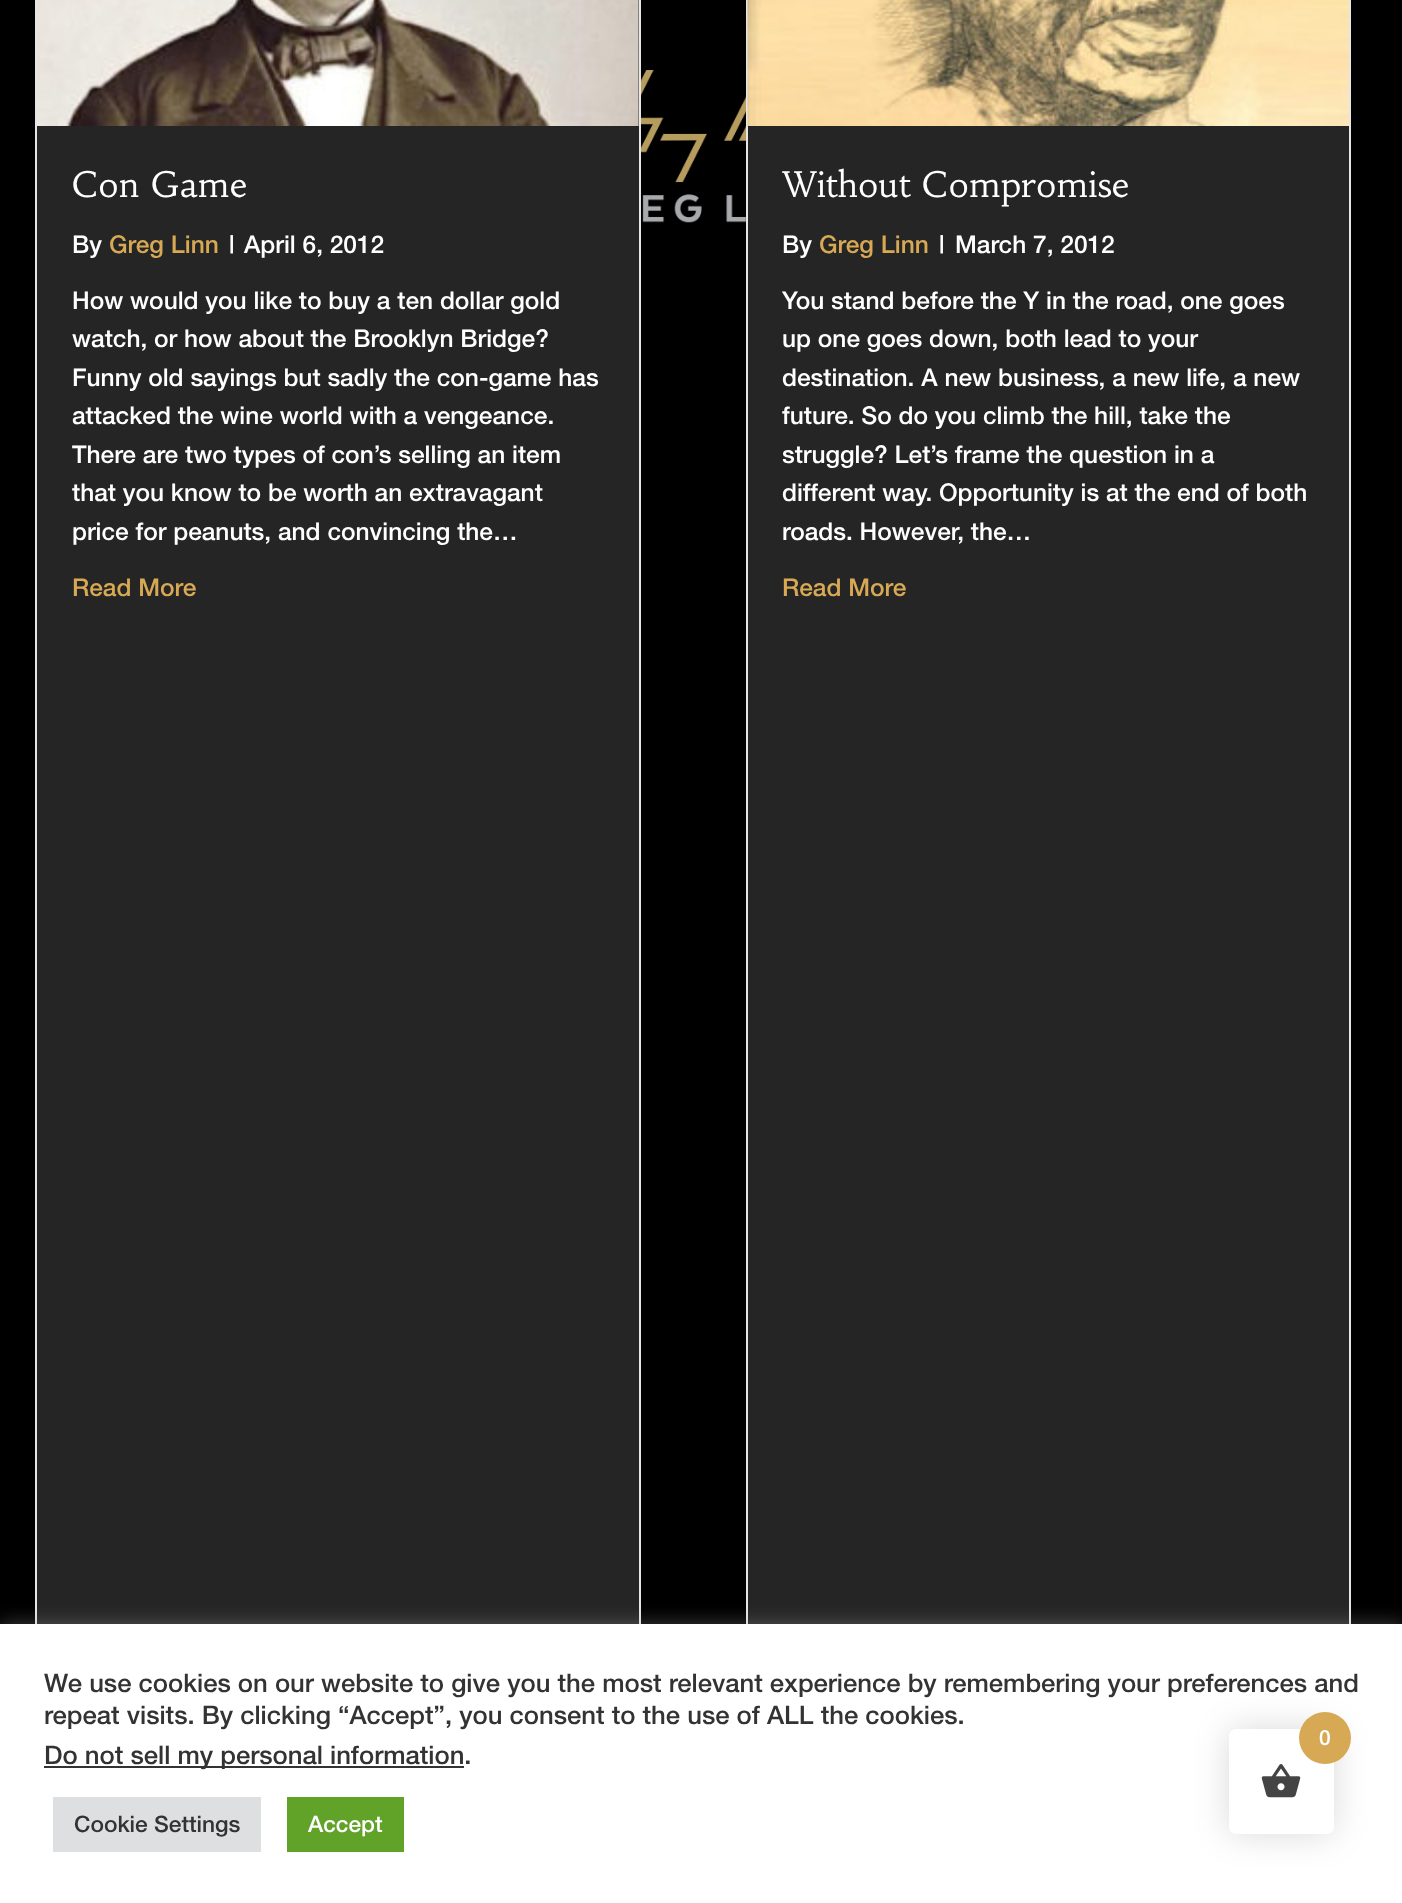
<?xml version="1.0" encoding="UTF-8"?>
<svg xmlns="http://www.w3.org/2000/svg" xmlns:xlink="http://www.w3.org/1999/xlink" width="1402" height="1903">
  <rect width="100%" height="100%" fill="#000000" />
  <image x="641" y="70" width="105" height="153" xlink:href="image1.png" />
  <rect x="37" width="602" height="1624" fill="#252525" />
  <rect x="36" y="-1" width="604" height="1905" fill="none" stroke="#e6e6e6" stroke-width="2" />
  <image x="37" y="0" width="602" height="126" xlink:href="image2.png" />
  <rect x="748" y="126" width="601" height="1498" fill="#252525" />
  <rect x="747" y="-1" width="603" height="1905" fill="none" stroke="#e6e6e6" stroke-width="2" />
  <image x="747" y="0" width="602" height="126" xlink:href="image3.png" />
  <rect y="1622" width="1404" height="280" fill="#acabab" fill-opacity="0.3" filter="blur(9px)" />
  <rect y="1624" width="1402" height="279" fill="#ffffff" />
  <rect x="44" y="1766" width="420" height="2" fill="#333333" />
  <rect x="53" y="1797" width="208" height="55" fill="#dedfe0" />
  <rect x="287" y="1797" width="117" height="55" fill="#61a229" />
  <rect x="1229" y="1729" width="105" height="105" rx="7" fill="#000000" fill-opacity="0.15" filter="blur(17.5px)" />
  <rect x="1229" y="1729" width="105" height="105" rx="7" fill="#ffffff" />
  <circle cx="1325" cy="1738" r="26" fill="#d7a955" />
  <image x="1261" y="1764" width="40" height="34" xlink:href="image4.png" />
  <text x="72" y="197" style="font-family: Habibi; font-size: 35px; fill: #ffffff">Con Game</text>
  <text x="72" y="253" style="font-family: Helvetica Neue; font-size: 24.5px; font-weight: 500; fill: #ffffff">By</text>
  <text x="109" y="253" style="font-family: Helvetica Neue; font-size: 24.5px; font-weight: 500; fill: #d7a955">Greg Linn</text>
  <text x="229" y="253" style="font-family: Helvetica Neue; font-size: 24.5px; font-weight: 500; fill: #ffffff">|</text>
  <text x="244" y="253" style="font-family: Helvetica Neue; font-size: 24.5px; font-weight: 500; fill: #ffffff">April 6, 2012</text>
  <text x="72" y="309" style="font-family: Helvetica Neue; font-size: 24.5px; font-weight: 500; fill: #ffffff">How would you like to buy a ten dollar gold</text>
  <text x="72" y="347" style="font-family: Helvetica Neue; font-size: 24.5px; font-weight: 500; fill: #ffffff">watch, or how about the Brooklyn Bridge?</text>
  <text x="72" y="386" style="font-family: Helvetica Neue; font-size: 24.5px; font-weight: 500; fill: #ffffff">Funny old sayings but sadly the con-game has</text>
  <text x="72" y="424" style="font-family: Helvetica Neue; font-size: 24.5px; font-weight: 500; fill: #ffffff">attacked the wine world with a vengeance.</text>
  <text x="72" y="463" style="font-family: Helvetica Neue; font-size: 24.5px; font-weight: 500; fill: #ffffff">There are two types of con’s selling an item</text>
  <text x="72" y="501" style="font-family: Helvetica Neue; font-size: 24.5px; font-weight: 500; fill: #ffffff">that you know to be worth an extravagant</text>
  <text x="72" y="540" style="font-family: Helvetica Neue; font-size: 24.5px; font-weight: 500; fill: #ffffff">price for peanuts, and convincing the…</text>
  <text x="72" y="596" style="font-family: Helvetica Neue; font-size: 24.5px; font-weight: 500; fill: #d7a955">Read More</text>
  <text x="782" y="197" style="font-family: Habibi; font-size: 35px; fill: #ffffff">Without Compromise</text>
  <text x="782" y="253" style="font-family: Helvetica Neue; font-size: 24.5px; font-weight: 500; fill: #ffffff">By</text>
  <text x="819" y="253" style="font-family: Helvetica Neue; font-size: 24.5px; font-weight: 500; fill: #d7a955">Greg Linn</text>
  <text x="939" y="253" style="font-family: Helvetica Neue; font-size: 24.5px; font-weight: 500; fill: #ffffff">|</text>
  <text x="955" y="253" style="font-family: Helvetica Neue; font-size: 24.5px; font-weight: 500; fill: #ffffff">March 7, 2012</text>
  <text x="782" y="309" style="font-family: Helvetica Neue; font-size: 24.5px; font-weight: 500; fill: #ffffff">You stand before the Y in the road, one goes</text>
  <text x="782" y="347" style="font-family: Helvetica Neue; font-size: 24.5px; font-weight: 500; fill: #ffffff">up one goes down, both lead to your</text>
  <text x="782" y="386" style="font-family: Helvetica Neue; font-size: 24.5px; font-weight: 500; fill: #ffffff">destination. A new business, a new life, a new</text>
  <text x="782" y="424" style="font-family: Helvetica Neue; font-size: 24.5px; font-weight: 500; fill: #ffffff">future. So do you climb the hill, take the</text>
  <text x="782" y="463" style="font-family: Helvetica Neue; font-size: 24.5px; font-weight: 500; fill: #ffffff">struggle? Let’s frame the question in a</text>
  <text x="782" y="501" style="font-family: Helvetica Neue; font-size: 24.5px; font-weight: 500; fill: #ffffff">different way. Opportunity is at the end of both</text>
  <text x="782" y="540" style="font-family: Helvetica Neue; font-size: 24.5px; font-weight: 500; fill: #ffffff">roads. However, the…</text>
  <text x="782" y="596" style="font-family: Helvetica Neue; font-size: 24.5px; font-weight: 500; fill: #d7a955">Read More</text>
  <text x="44" y="1692" style="font-family: Helvetica Neue; font-size: 25.67px; font-weight: 500; fill: #333333">We use cookies on our website to give you the most relevant experience by remembering your preferences and</text>
  <text x="44" y="1724" style="font-family: Helvetica Neue; font-size: 25.67px; font-weight: 500; fill: #333333">repeat visits. By clicking “Accept”, you consent to the use of ALL the cookies.</text>
  <text x="44" y="1764" style="font-family: Helvetica Neue; font-size: 25.67px; font-weight: 500; fill: #333333">Do not sell my personal information.</text>
  <text x="74" y="1832" style="font-family: Helvetica Neue; font-size: 22.75px; font-weight: 500; fill: #333333">Cookie Settings</text>
  <text x="308" y="1832" style="font-family: Helvetica Neue; font-size: 22.75px; font-weight: 500; fill: #ffffff">Accept</text>
  <text x="1319" y="1745" style="font-family: Helvetica Neue; font-size: 21px; font-weight: 500; fill: #ffffff">0</text>
</svg>
